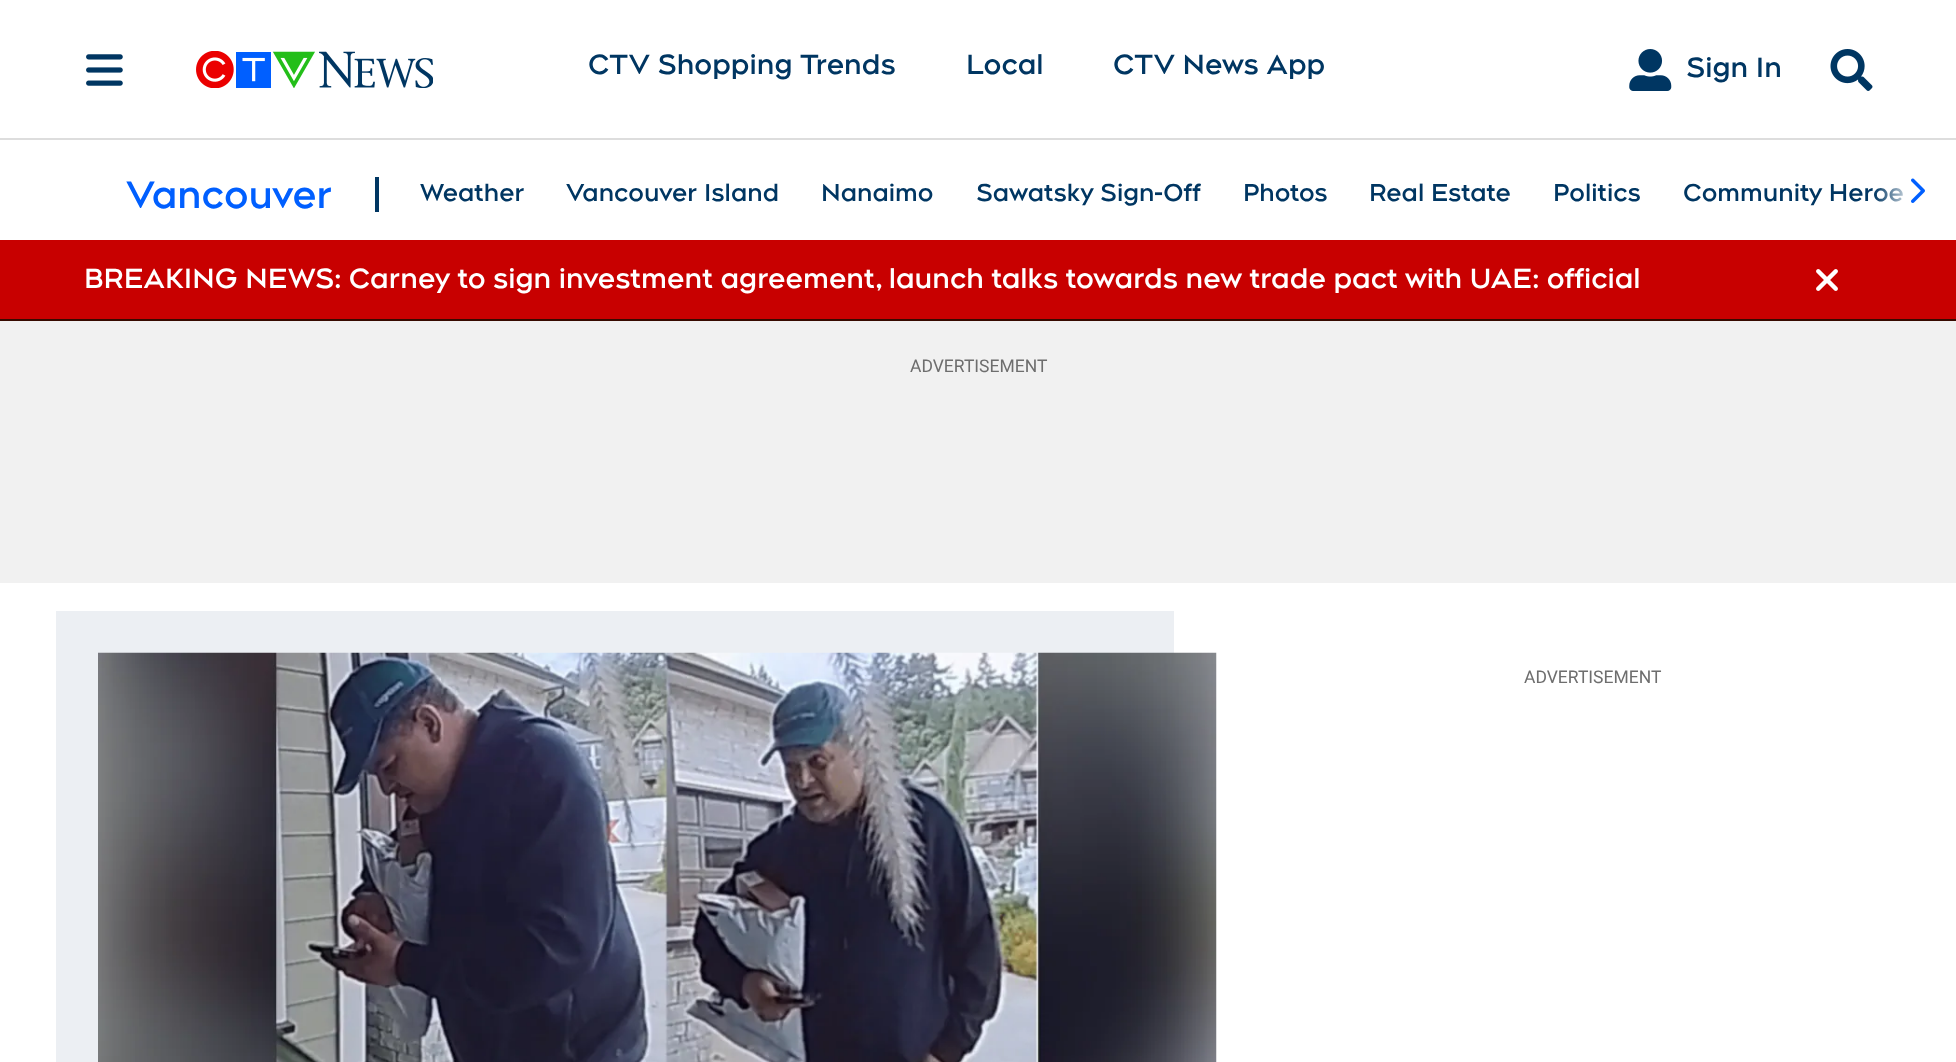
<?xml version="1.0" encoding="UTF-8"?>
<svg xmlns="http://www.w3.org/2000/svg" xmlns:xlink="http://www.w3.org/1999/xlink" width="1956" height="1062">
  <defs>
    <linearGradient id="g1" gradientUnits="userSpaceOnUse" x1="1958" y1="190" x2="1874" y2="190"><stop offset="0.5" stop-color="#ffffff" /><stop offset="1" stop-color="#ffffff" stop-opacity="0" /></linearGradient>
  </defs>
  <rect width="100%" height="100%" fill="#ffffff" />
  <rect y="138" width="1956" height="2" fill="#dddddd" />
  <image x="86" y="54" width="37" height="32" xlink:href="image1.png" />
  <image x="196" y="51" width="237" height="37" xlink:href="image2.png" />
  <image x="1629" y="49" width="43" height="42" xlink:href="image3.png" />
  <image x="1830" y="49" width="43" height="42" xlink:href="image4.png" />
  <rect x="375" y="177" width="4" height="35" fill="#003662" />
  <rect y="240" width="1956" height="79" fill="#c80000" />
  <rect y="319" width="1956" height="2" fill="#370a00" />
  <image x="1816" y="269" width="22" height="22" xlink:href="image6.png" />
  <rect y="321" width="1956" height="262" fill="#f1f1f1" />
  <path d="M 56 611 v 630 h 42 v -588 h 1076 v -42 z" fill="#eceff3" />
  <image x="98" y="652" width="1119" height="410" xlink:href="image7.png" />
  <text x="588" y="74" style="font-family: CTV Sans; font-size: 28px; font-weight: bold; fill: #003662">CTV Shopping Trends</text>
  <text x="966" y="74" style="font-family: CTV Sans; font-size: 28px; font-weight: bold; fill: #003662">Local</text>
  <text x="1113" y="74" style="font-family: CTV Sans; font-size: 28px; font-weight: bold; fill: #003662">CTV News App</text>
  <text x="1686" y="77" style="font-family: CTV Sans; font-size: 28px; font-weight: bold; fill: #003662">Sign In</text>
  <text x="126" y="208" style="font-family: CTV Sans; font-size: 38.5px; font-weight: bold; fill: #005fff">Vancouver</text>
  <text x="420" y="201" style="font-family: CTV Sans; font-size: 24.5px; font-weight: bold; fill: #003662">Weather</text>
  <text x="566" y="201" style="font-family: CTV Sans; font-size: 24.5px; font-weight: bold; fill: #003662">Vancouver Island</text>
  <text x="821" y="201" style="font-family: CTV Sans; font-size: 24.5px; font-weight: bold; fill: #003662">Nanaimo</text>
  <text x="976" y="201" style="font-family: CTV Sans; font-size: 24.5px; font-weight: bold; fill: #003662">Sawatsky Sign-Off</text>
  <text x="1243" y="201" style="font-family: CTV Sans; font-size: 24.5px; font-weight: bold; fill: #003662">Photos</text>
  <text x="1369" y="201" style="font-family: CTV Sans; font-size: 24.5px; font-weight: bold; fill: #003662">Real Estate</text>
  <text x="1553" y="201" style="font-family: CTV Sans; font-size: 24.5px; font-weight: bold; fill: #003662">Politics</text>
  <text x="1683" y="201" style="font-family: CTV Sans; font-size: 24.5px; font-weight: bold; fill: #003662">Community Heroe</text>
  <rect x="1874" y="168" width="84" height="44" rx="7" fill="url(#g1)" />
  <image x="1911" y="178" width="14" height="25" xlink:href="image5.png" />
  <text x="84" y="288" style="font-family: CTV Sans; font-size: 28px; font-weight: bold; fill: #ffffff">BREAKING NEWS: Carney to sign investment agreement, launch talks towards new trade pact with UAE: official</text>
  <text x="910" y="372" style="font-family: Roboto; font-size: 17.5px; fill: #6e6e6e">ADVERTISEMENT</text>
  <text x="1524" y="683" style="font-family: Roboto; font-size: 17.5px; fill: #6e6e6e">ADVERTISEMENT</text>
</svg>
